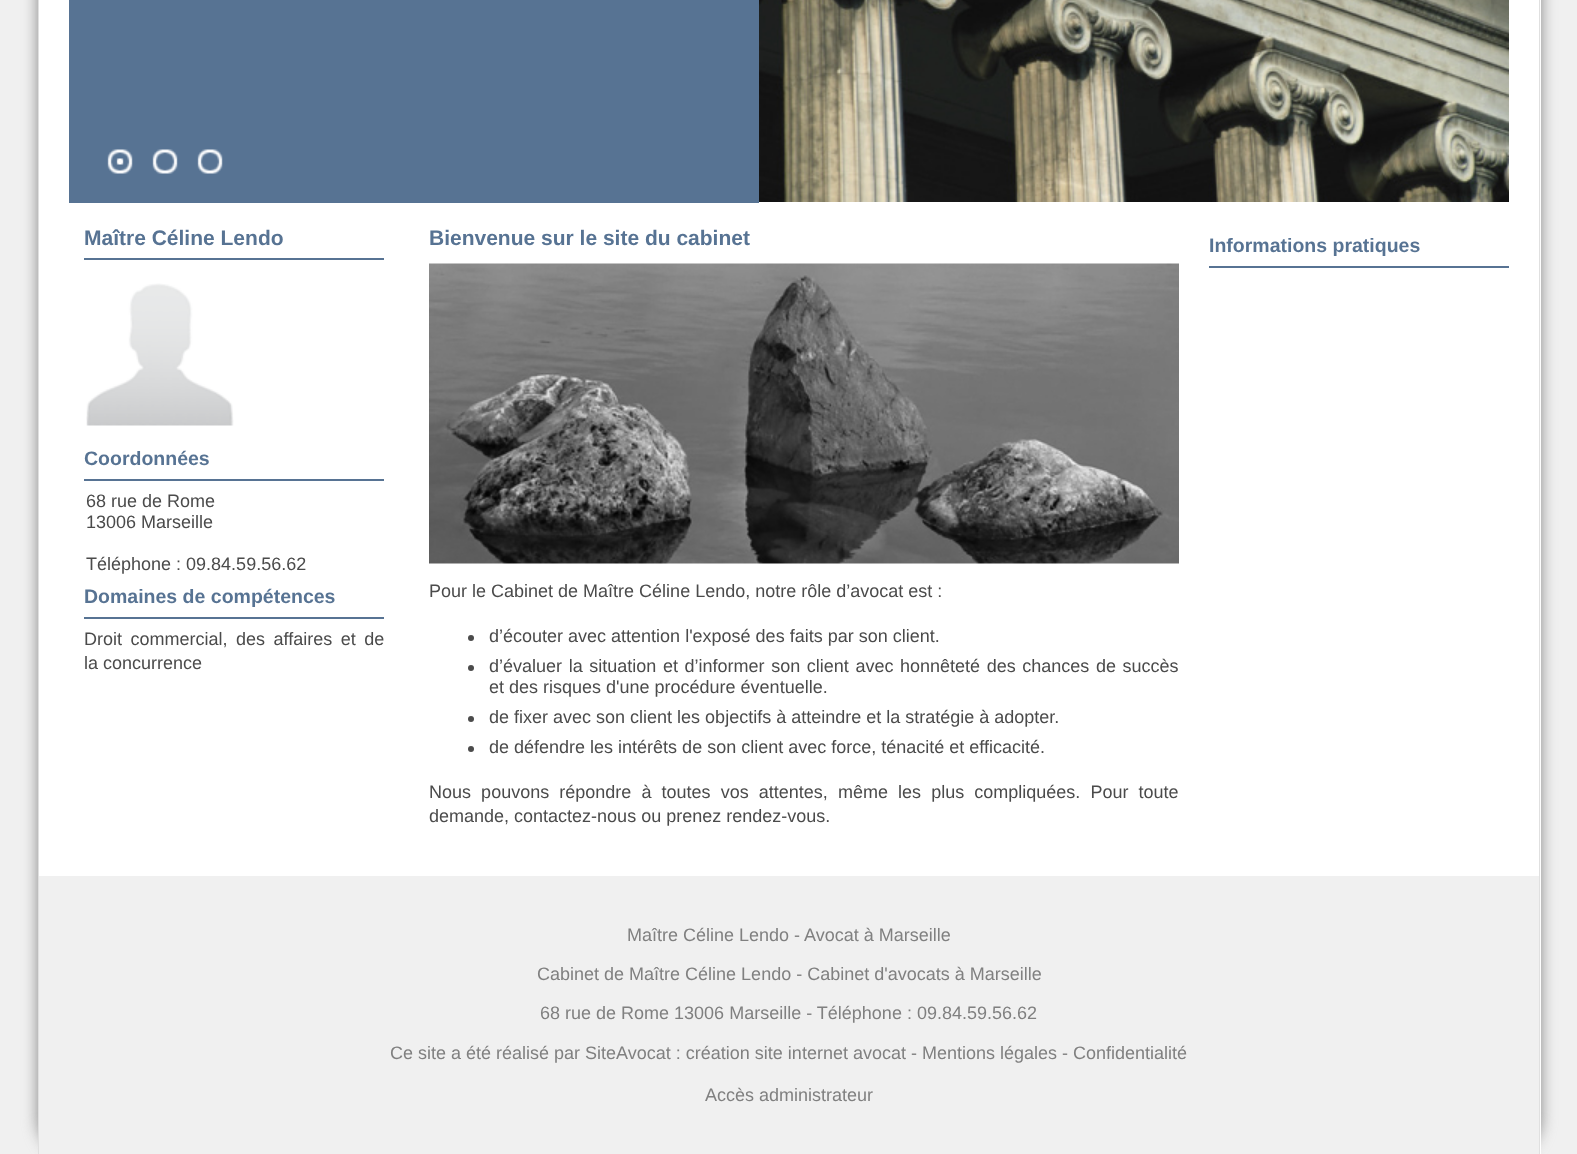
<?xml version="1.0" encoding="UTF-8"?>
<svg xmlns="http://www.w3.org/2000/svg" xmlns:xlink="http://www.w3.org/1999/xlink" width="1577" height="1154">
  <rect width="100%" height="100%" fill="#f0f0f0" />
  <rect x="38" y="-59" width="1503" height="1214" rx="36" fill="#888888" filter="blur(7.5px)" />
  <rect x="39" width="1502" height="1154" fill="#ffffff" />
  <path d="M 74 -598 h 1430 c 20 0 36 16 36 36 v 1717 h -1502 v -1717 c 0 -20 16 -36 36 -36 z m 0 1 h 1430 c 20 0 35 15 35 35 v 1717 h -1500 v -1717 c 0 -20 15 -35 35 -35 z" fill="#e0e0e0" fill-rule="evenodd" />
  <rect x="69" width="690" height="203" fill="#577393" />
  <image x="759" y="0" width="750" height="202" xlink:href="image1.png" />
  <image x="107" y="149" width="26" height="25" xlink:href="image2.png" />
  <image x="152" y="149" width="26" height="25" xlink:href="image3.png" />
  <image x="197" y="149" width="26" height="25" xlink:href="image3.png" />
  <rect x="84" y="258" width="300" height="2" fill="#577393" />
  <image x="86" y="283" width="148" height="143" xlink:href="image4.png" />
  <rect x="84" y="479" width="300" height="2" fill="#577393" />
  <rect x="84" y="617" width="300" height="2" fill="#577393" />
  <image x="429" y="263" width="750" height="301" xlink:href="image5.png" />
  <circle cx="471" cy="638" r="3" fill="#4b4b4b" />
  <circle cx="471" cy="668" r="3" fill="#4b4b4b" />
  <circle cx="471" cy="719" r="3" fill="#4b4b4b" />
  <circle cx="471" cy="749" r="3" fill="#4b4b4b" />
  <rect x="1209" y="266" width="300" height="2" fill="#577393" />
  <rect x="39" y="876" width="1500" height="278" fill="#f0f0f0" />
  <text x="84" y="245" style="font-family: Liberation Sans; font-size: 21px; font-weight: bold; fill: #577393">Maître Céline Lendo</text>
  <text x="84" y="465" style="font-family: Liberation Sans; font-size: 19.5px; font-weight: bold; fill: #577393">Coordonnées</text>
  <text x="86" y="507" style="font-family: Liberation Sans; font-size: 18px; fill: #4b4b4b">68 rue de Rome</text>
  <text x="86" y="528" style="font-family: Liberation Sans; font-size: 18px; fill: #4b4b4b">13006 Marseille</text>
  <text x="86" y="570" style="font-family: Liberation Sans; font-size: 18px; fill: #4b4b4b">Téléphone : 09.84.59.56.62</text>
  <text x="84" y="603" style="font-family: Liberation Sans; font-size: 19.5px; font-weight: bold; fill: #577393">Domaines de compétences</text>
  <text x="84" y="645" word-spacing="3.5" style="font-family: Liberation Sans; font-size: 18px; fill: #4b4b4b">Droit commercial, des affaires et de</text>
  <text x="84" y="669" style="font-family: Liberation Sans; font-size: 18px; fill: #4b4b4b">la concurrence</text>
  <text x="429" y="245" style="font-family: Liberation Sans; font-size: 21px; font-weight: bold; fill: #577393">Bienvenue sur le site du cabinet</text>
  <text x="429" y="597" style="font-family: Liberation Sans; font-size: 18px; fill: #4b4b4b">Pour le Cabinet de Maître Céline Lendo, notre rôle d’avocat est :</text>
  <text x="489" y="642" style="font-family: Liberation Sans; font-size: 18px; fill: #4b4b4b">d’écouter avec attention l'exposé des faits par son client.</text>
  <text x="489" y="672" word-spacing="1.6" style="font-family: Liberation Sans; font-size: 18px; fill: #4b4b4b">d’évaluer la situation et d’informer son client avec honnêteté des chances de succès</text>
  <text x="489" y="693" style="font-family: Liberation Sans; font-size: 18px; fill: #4b4b4b">et des risques d'une procédure éventuelle.</text>
  <text x="489" y="723" style="font-family: Liberation Sans; font-size: 18px; fill: #4b4b4b">de fixer avec son client les objectifs à atteindre et la stratégie à adopter.</text>
  <text x="489" y="753" style="font-family: Liberation Sans; font-size: 18px; fill: #4b4b4b">de défendre les intérêts de son client avec force, ténacité et efficacité.</text>
  <text x="429" y="798" word-spacing="5.1" style="font-family: Liberation Sans; font-size: 18px; fill: #4b4b4b">Nous pouvons répondre à toutes vos attentes, même les plus compliquées. Pour toute</text>
  <text x="429" y="822" style="font-family: Liberation Sans; font-size: 18px; fill: #4b4b4b">demande, contactez-nous ou prenez rendez-vous.</text>
  <text x="1209" y="252" style="font-family: Liberation Sans; font-size: 19.5px; font-weight: bold; fill: #577393">Informations pratiques</text>
  <text x="627" y="941" style="font-family: Liberation Sans; font-size: 18px; fill: #808080">Maître Céline Lendo - Avocat à Marseille</text>
  <text x="537" y="980" style="font-family: Liberation Sans; font-size: 18px; fill: #808080">Cabinet de Maître Céline Lendo - Cabinet d'avocats à Marseille</text>
  <text x="540" y="1019" style="font-family: Liberation Sans; font-size: 18px; fill: #808080">68 rue de Rome 13006 Marseille - Téléphone : 09.84.59.56.62</text>
  <text x="390" y="1059" style="font-family: Liberation Sans; font-size: 18px; fill: #808080">Ce site a été réalisé par SiteAvocat : création site internet avocat - Mentions légales - Confidentialité</text>
  <text x="705" y="1101" style="font-family: Liberation Sans; font-size: 18px; fill: #808080">Accès administrateur</text>
</svg>
